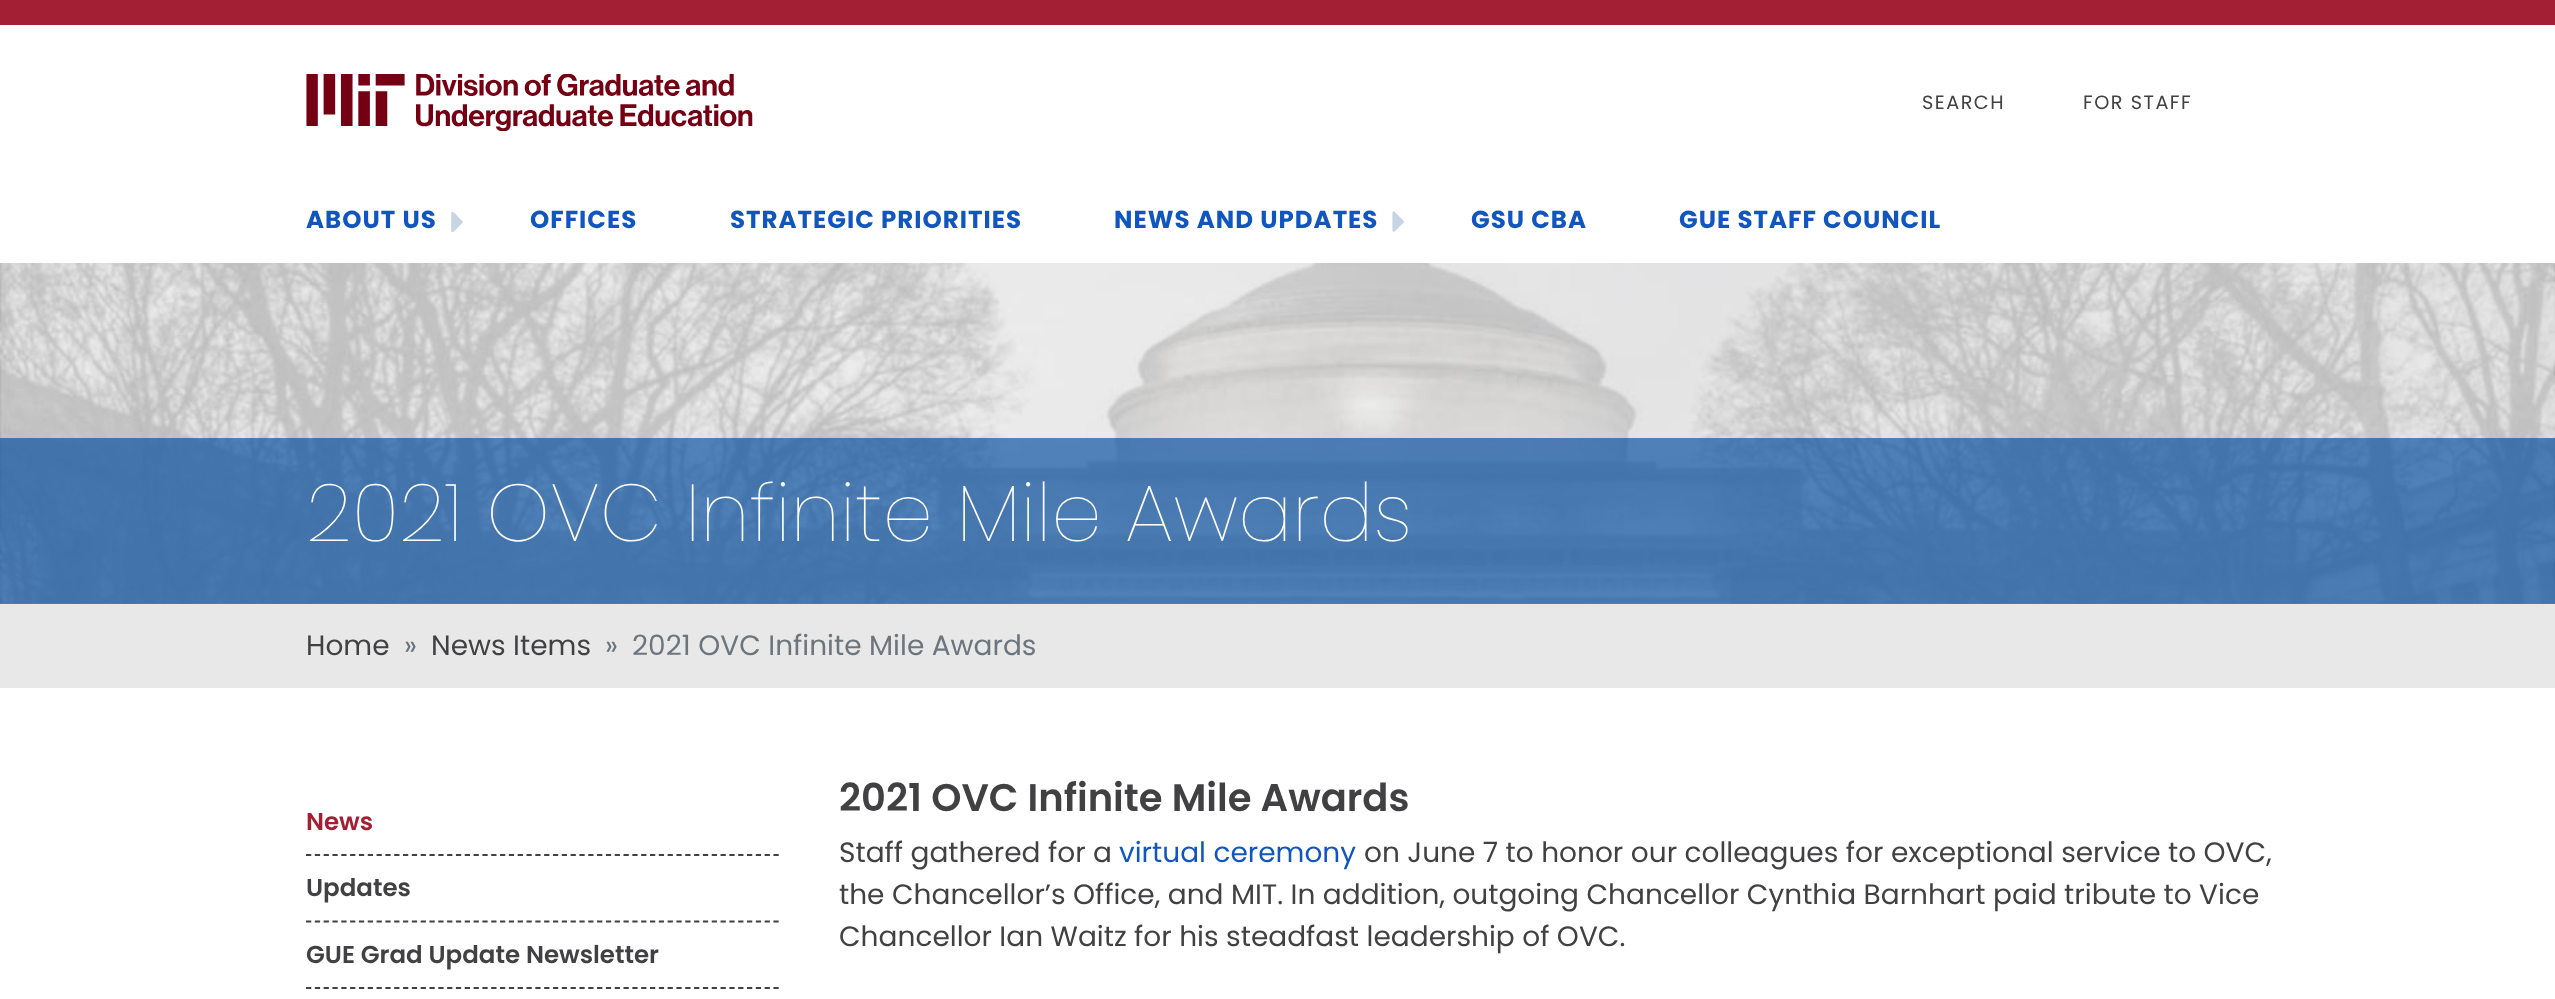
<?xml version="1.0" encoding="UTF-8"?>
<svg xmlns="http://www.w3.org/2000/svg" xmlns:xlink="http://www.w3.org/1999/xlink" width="2555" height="999">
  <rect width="100%" height="100%" fill="#ffffff" />
  <rect width="2555" height="25" fill="#a31f34" />
  <image x="306" y="74" width="447" height="57" xlink:href="image1.png" />
  <image x="451" y="211" width="12" height="22" xlink:href="image2.png" />
  <image x="1392" y="211" width="12" height="21" xlink:href="image3.png" />
  <image x="0" y="263" width="2555" height="341" xlink:href="image4.png" />
  <rect y="438" width="2555" height="166" fill="#0049a0" fill-opacity="0.65" />
  <rect y="604" width="2555" height="84" fill="#e8e8e8" />
  <path d="M 306 855 h 473" fill="none" stroke="#414042" stroke-width="1.8" stroke-dasharray="5.25 3.57" />
  <path d="M 306 921.5 h 473" fill="none" stroke="#414042" stroke-width="1.8" stroke-dasharray="5.25 3.57" />
  <path d="M 306 988 h 473" fill="none" stroke="#414042" stroke-width="1.8" stroke-dasharray="5.25 3.57" />
  <text x="1922" y="109" style="font-family: Poppins; font-size: 19.25px; letter-spacing: 1.5px; fill: #414042">SEARCH</text>
  <text x="2083" y="109" style="font-family: Poppins; font-size: 19.25px; letter-spacing: 1.5px; fill: #414042">FOR STAFF</text>
  <text x="306" y="228" style="font-family: Poppins; font-size: 24.5px; font-weight: bold; letter-spacing: 1px; fill: #1156bf">ABOUT US</text>
  <text x="530" y="228" style="font-family: Poppins; font-size: 24.5px; font-weight: bold; letter-spacing: 1px; fill: #1156bf">OFFICES</text>
  <text x="730" y="228" style="font-family: Poppins; font-size: 24.5px; font-weight: bold; letter-spacing: 1px; fill: #1156bf">STRATEGIC PRIORITIES</text>
  <text x="1114" y="228" style="font-family: Poppins; font-size: 24.5px; font-weight: bold; letter-spacing: 1px; fill: #1156bf">NEWS AND UPDATES</text>
  <text x="1471" y="228" style="font-family: Poppins; font-size: 24.5px; font-weight: bold; letter-spacing: 1px; fill: #1156bf">GSU CBA</text>
  <text x="1679" y="228" style="font-family: Poppins; font-size: 24.5px; font-weight: bold; letter-spacing: 1px; fill: #1156bf">GUE STAFF COUNCIL</text>
  <text x="306" y="541" style="font-family: Poppins; font-size: 80.5px; font-weight: 200; fill: #ffffff">2021 OVC Infinite Mile Awards</text>
  <text x="306" y="655" style="font-family: Poppins; font-size: 28px; fill: #414042">Home</text>
  <text x="404" y="655" style="font-family: Poppins; font-size: 28px; fill: #6c757d">»</text>
  <text x="431" y="655" style="font-family: Poppins; font-size: 28px; fill: #414042">News Items</text>
  <text x="605" y="655" style="font-family: Poppins; font-size: 28px; fill: #6c757d">»</text>
  <text x="632" y="655" style="font-family: Poppins; font-size: 28px; fill: #6c757d">2021 OVC Infinite Mile Awards</text>
  <text x="306" y="830" style="font-family: Poppins; font-size: 24.5px; font-weight: 600; fill: #a31f34">News</text>
  <text x="306" y="896" style="font-family: Poppins; font-size: 24.5px; font-weight: 600; fill: #414042">Updates</text>
  <text x="306" y="963" style="font-family: Poppins; font-size: 24.5px; font-weight: 600; fill: #414042">GUE Grad Update Newsletter</text>
  <text x="839" y="811" style="font-family: Poppins; font-size: 38.5px; font-weight: 600; fill: #414042">2021 OVC Infinite Mile Awards</text>
  <text x="839" y="862" style="font-family: Poppins; font-size: 28px; fill: #414042">Staff gathered for a</text>
  <text x="1119" y="862" style="font-family: Poppins; font-size: 28px; fill: #1156bf">virtual ceremony</text>
  <text x="1364" y="862" style="font-family: Poppins; font-size: 28px; fill: #414042">on June 7 to honor our colleagues for exceptional service to OVC,</text>
  <text x="839" y="904" style="font-family: Poppins; font-size: 28px; fill: #414042">the Chancellor’s Office, and MIT. In addition, outgoing Chancellor Cynthia Barnhart paid tribute to Vice</text>
  <text x="839" y="946" style="font-family: Poppins; font-size: 28px; fill: #414042">Chancellor Ian Waitz for his steadfast leadership of OVC.</text>
</svg>
